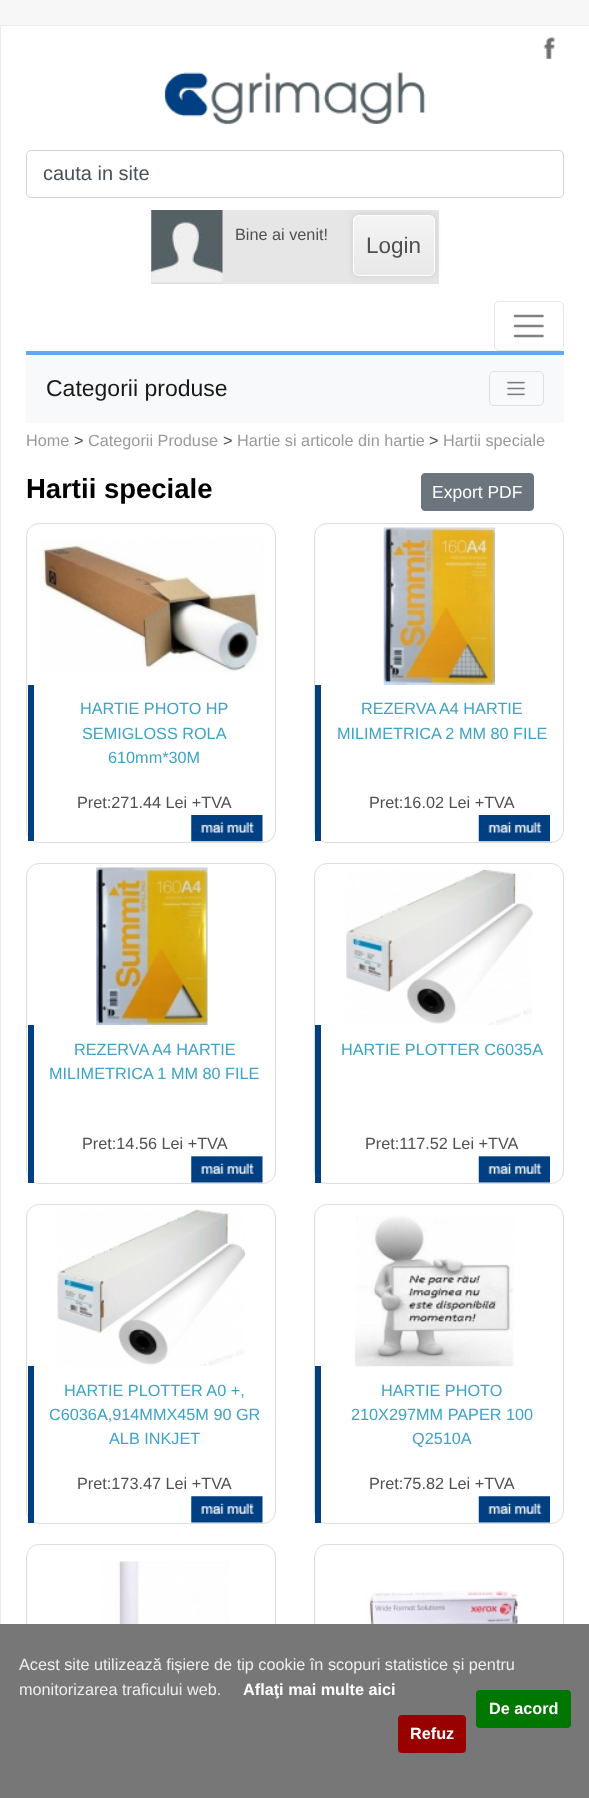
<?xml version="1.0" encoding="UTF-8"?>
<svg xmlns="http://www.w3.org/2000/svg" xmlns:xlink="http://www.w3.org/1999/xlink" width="589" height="1798">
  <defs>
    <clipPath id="clip1"><rect x="353" y="215" width="82" height="61" rx="6" /></clipPath>
    <linearGradient id="g1" gradientUnits="userSpaceOnUse" x1="354" y1="216" x2="354" y2="275"><stop offset="0" stop-color="#f4f4f4" /><stop offset="1" stop-color="#e8e8e8" /></linearGradient>
  </defs>
  <rect width="100%" height="100%" fill="#f7f7f7" />
  <rect x="1" y="26" width="588" height="1598" fill="#ffffff" />
  <rect x="0.5" y="25.5" width="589" height="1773" fill="none" stroke="#ececec" />
  <image x="543" y="37" width="13" height="22" xlink:href="image1.png" />
  <image x="164" y="72" width="262" height="52" xlink:href="image2.png" />
  <rect x="26.5" y="150.5" width="537" height="47" rx="4.5" fill="none" stroke="#ced4da" />
  <rect x="151" y="210" width="288" height="74" fill="#e6e6e6" />
  <image x="151" y="210" width="72" height="74" xlink:href="image3.png" />
  <rect x="353" y="215" width="82" height="61" rx="6" fill="#cccccc" filter="blur(3px)" />
  <g clip-path="url(#clip1)">
    <rect x="353" y="216" width="82" height="59" fill="url(#g1)" />
  </g>
  <rect x="353.5" y="215.5" width="81" height="60" rx="5.5" fill="none" stroke="#ffffff" />
  <rect x="26" y="351" width="538" height="4" fill="#64a8f0" />
  <rect x="494.5" y="301.5" width="69" height="49" rx="4.5" fill="none" stroke="#e6e6e6" />
  <path d="M 515 316 h 27.5 m -27.5 10 h 27.5 m -27.5 10 h 27.5" fill="none" stroke="#808080" stroke-width="2.5" stroke-linecap="round" />
  <rect x="26" y="355" width="538" height="68" fill="#f8f9fa" />
  <rect x="489.5" y="371.5" width="54" height="34" rx="4.5" fill="none" stroke="#dfe0e1" />
  <image x="507" y="381" width="18" height="15" xlink:href="image4.png" />
  <rect x="421.5" y="473.5" width="112" height="37" rx="3.5" fill="#6c757d" stroke="#6c757d" />
  <rect x="26.5" y="523.5" width="249" height="319" rx="12.5" fill="none" stroke="#dddddd" />
  <image x="39" y="539" width="225" height="134" xlink:href="image5.png" />
  <rect x="28" y="685" width="6" height="156" fill="#003f82" />
  <image x="191" y="815" width="72" height="27" xlink:href="image6.png" />
  <rect x="314.5" y="523.5" width="249" height="319" rx="12.5" fill="none" stroke="#dddddd" />
  <image x="383" y="527" width="112" height="158" xlink:href="image7.png" />
  <rect x="315" y="685" width="6" height="156" fill="#003f82" />
  <image x="478" y="815" width="72" height="27" xlink:href="image8.png" />
  <rect x="26.5" y="863.5" width="249" height="320" rx="12.5" fill="none" stroke="#dddddd" />
  <image x="96" y="867" width="112" height="158" xlink:href="image9.png" />
  <rect x="28" y="1025" width="6" height="158" fill="#003f82" />
  <image x="191" y="1156" width="72" height="27" xlink:href="image10.png" />
  <rect x="314.5" y="863.5" width="249" height="320" rx="12.5" fill="none" stroke="#dddddd" />
  <image x="346" y="869" width="187" height="156" xlink:href="image11.png" />
  <rect x="315" y="1025" width="6" height="158" fill="#003f82" />
  <image x="478" y="1156" width="72" height="27" xlink:href="image12.png" />
  <rect x="26.5" y="1204.5" width="249" height="319" rx="12.5" fill="none" stroke="#dddddd" />
  <image x="57" y="1209" width="188" height="157" xlink:href="image13.png" />
  <rect x="28" y="1366" width="6" height="157" fill="#003f82" />
  <image x="191" y="1496" width="72" height="27" xlink:href="image14.png" />
  <rect x="314.5" y="1204.5" width="249" height="319" rx="12.5" fill="none" stroke="#dddddd" />
  <image x="355" y="1215" width="159" height="152" xlink:href="image15.png" />
  <rect x="315" y="1366" width="6" height="157" fill="#003f82" />
  <image x="478" y="1496" width="72" height="27" xlink:href="image16.png" />
  <rect x="26.5" y="1544.5" width="249" height="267" rx="12.5" fill="none" stroke="#dddddd" />
  <image x="100" y="1561" width="130" height="63" xlink:href="image17.png" />
  <rect x="314.5" y="1544.5" width="249" height="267" rx="12.5" fill="none" stroke="#dddddd" />
  <image x="365" y="1590" width="153" height="34" xlink:href="image18.png" />
  <rect y="1624" width="589" height="174" fill="#777777" />
  <rect x="476" y="1690" width="95" height="38" rx="4" fill="#007700" />
  <rect x="398" y="1715" width="68" height="38" rx="4" fill="#990000" />
  <text x="43" y="180" style="font-family: Liberation Sans; font-size: 20px; fill: #495057">cauta in site</text>
  <text x="235" y="240" style="font-family: Liberation Sans; font-size: 16.25px; fill: #505050">Bine ai venit!</text>
  <text x="366" y="253" style="font-family: Liberation Sans; font-size: 22.5px; fill: #505050">Login</text>
  <text x="46" y="396" style="font-family: Liberation Sans; font-size: 23px; fill: #191919">Categorii produse</text>
  <text x="26" y="446" style="font-family: Liberation Sans; font-size: 16.25px; fill: #999999">Home</text>
  <text x="74" y="446" style="font-family: Liberation Sans; font-size: 16.25px; fill: #505050">&gt;</text>
  <text x="88" y="446" style="font-family: Liberation Sans; font-size: 16.25px; fill: #999999">Categorii Produse</text>
  <text x="223" y="446" style="font-family: Liberation Sans; font-size: 16.25px; fill: #505050">&gt;</text>
  <text x="237" y="446" style="font-family: Liberation Sans; font-size: 16.25px; fill: #999999">Hartie si articole din hartie</text>
  <text x="429" y="446" style="font-family: Liberation Sans; font-size: 16.25px; fill: #505050">&gt;</text>
  <text x="443" y="446" style="font-family: Liberation Sans; font-size: 16.25px; fill: #999999">Hartii speciale</text>
  <text x="26" y="498" style="font-family: Liberation Sans; font-size: 27.5px; font-weight: bold; fill: #000000">Hartii speciale</text>
  <text x="432" y="498" style="font-family: Liberation Sans; font-size: 17.5px; fill: #ffffff">Export PDF</text>
  <text x="80" y="714" style="font-family: Liberation Sans; font-size: 16.25px; fill: #3fa2c7">HARTIE PHOTO HP</text>
  <text x="82" y="739" style="font-family: Liberation Sans; font-size: 16.25px; fill: #3fa2c7">SEMIGLOSS ROLA</text>
  <text x="108" y="763" style="font-family: Liberation Sans; font-size: 16.25px; fill: #3fa2c7">610mm*30M</text>
  <text x="77" y="808" style="font-family: Liberation Sans; font-size: 16.25px; fill: #505050">Pret:271.44 Lei +TVA</text>
  <text x="361" y="714" style="font-family: Liberation Sans; font-size: 16.25px; fill: #3fa2c7">REZERVA A4 HARTIE</text>
  <text x="337" y="739" style="font-family: Liberation Sans; font-size: 16.25px; fill: #3fa2c7">MILIMETRICA 2 MM 80 FILE</text>
  <text x="369" y="808" style="font-family: Liberation Sans; font-size: 16.25px; fill: #505050">Pret:16.02 Lei +TVA</text>
  <text x="74" y="1055" style="font-family: Liberation Sans; font-size: 16.25px; fill: #3fa2c7">REZERVA A4 HARTIE</text>
  <text x="49" y="1079" style="font-family: Liberation Sans; font-size: 16.25px; fill: #3fa2c7">MILIMETRICA 1 MM 80 FILE</text>
  <text x="82" y="1149" style="font-family: Liberation Sans; font-size: 16.25px; fill: #505050">Pret:14.56 Lei +TVA</text>
  <text x="341" y="1055" style="font-family: Liberation Sans; font-size: 16.25px; fill: #3fa2c7">HARTIE PLOTTER C6035A</text>
  <text x="365" y="1149" style="font-family: Liberation Sans; font-size: 16.25px; fill: #505050">Pret:117.52 Lei +TVA</text>
  <text x="64" y="1396" style="font-family: Liberation Sans; font-size: 16.25px; fill: #3fa2c7">HARTIE PLOTTER A0 +,</text>
  <text x="49" y="1420" style="font-family: Liberation Sans; font-size: 16.25px; fill: #3fa2c7">C6036A,914MMX45M 90 GR</text>
  <text x="109" y="1444" style="font-family: Liberation Sans; font-size: 16.25px; fill: #3fa2c7">ALB INKJET</text>
  <text x="77" y="1489" style="font-family: Liberation Sans; font-size: 16.25px; fill: #505050">Pret:173.47 Lei +TVA</text>
  <text x="381" y="1396" style="font-family: Liberation Sans; font-size: 16.25px; fill: #3fa2c7">HARTIE PHOTO</text>
  <text x="351" y="1420" style="font-family: Liberation Sans; font-size: 16.25px; fill: #3fa2c7">210X297MM PAPER 100</text>
  <text x="412" y="1444" style="font-family: Liberation Sans; font-size: 16.25px; fill: #3fa2c7">Q2510A</text>
  <text x="369" y="1489" style="font-family: Liberation Sans; font-size: 16.25px; fill: #505050">Pret:75.82 Lei +TVA</text>
  <text x="19" y="1670" style="font-family: Liberation Sans; font-size: 16.25px; fill: #eeeeee">Acest site utilizează fișiere de tip cookie în scopuri statistice și pentru</text>
  <text x="19" y="1695" style="font-family: Liberation Sans; font-size: 16.25px; fill: #eeeeee">monitorizarea traficului web.</text>
  <text x="243" y="1695" style="font-family: Liberation Sans; font-size: 16.25px; font-weight: bold; fill: #ffffff">Aflaţi mai multe aici</text>
  <text x="489" y="1714" style="font-family: Liberation Sans; font-size: 16.25px; font-weight: bold; fill: #ffffff">De acord</text>
  <text x="410" y="1739" style="font-family: Liberation Sans; font-size: 16.25px; font-weight: bold; fill: #ffffff">Refuz</text>
</svg>
